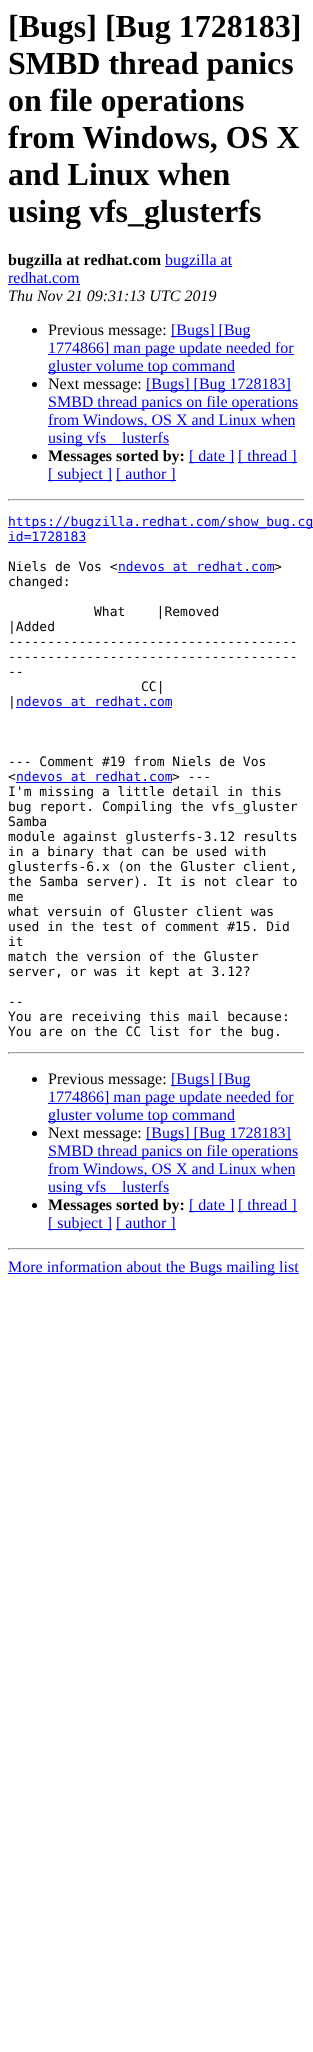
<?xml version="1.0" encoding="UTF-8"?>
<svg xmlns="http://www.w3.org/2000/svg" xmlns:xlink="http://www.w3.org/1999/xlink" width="313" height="2052">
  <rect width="100%" height="100%" fill="#ffffff" />
  <rect x="165" y="266" width="67" height="1" fill="#0000ee" />
  <rect x="8" y="284" width="72" height="1" fill="#0000ee" />
  <circle cx="34.5" cy="330.5" r="2.5" fill="#000000" />
  <rect x="171" y="336" width="79" height="1" fill="#0000ee" />
  <rect x="48" y="354" width="246" height="1" fill="#0000ee" />
  <rect x="48" y="372" width="187" height="1" fill="#0000ee" />
  <circle cx="34.5" cy="384.5" r="2.5" fill="#000000" />
  <rect x="146" y="390" width="145" height="1" fill="#0000ee" />
  <rect x="48" y="408" width="250" height="1" fill="#0000ee" />
  <rect x="48" y="426" width="247" height="1" fill="#0000ee" />
  <rect x="48" y="444" width="121" height="1" fill="#0000ee" />
  <circle cx="34.5" cy="456.5" r="2.5" fill="#000000" />
  <rect x="189" y="462" width="45" height="1" fill="#0000ee" />
  <rect x="238" y="462" width="59" height="1" fill="#0000ee" />
  <rect x="48" y="480" width="64" height="1" fill="#0000ee" />
  <rect x="116" y="480" width="60" height="1" fill="#0000ee" />
  <rect x="8" y="499" width="297" height="1" fill="#9f9f9f" />
  <rect x="304" y="499" width="1" height="2" fill="#eeeeee" />
  <rect x="8" y="500" width="297" height="1" fill="#eeeeee" />
  <rect x="8" y="499" width="1" height="2" fill="#9f9f9f" />
  <rect x="8" y="527" width="305" height="1" fill="#0000ee" />
  <rect x="8" y="542" width="78" height="1" fill="#0000ee" />
  <rect x="118" y="572" width="156" height="1" fill="#0000ee" />
  <rect x="16" y="707" width="156" height="1" fill="#0000ee" />
  <rect x="16" y="782" width="156" height="1" fill="#0000ee" />
  <rect x="8" y="1052" width="297" height="1" fill="#9f9f9f" />
  <rect x="304" y="1052" width="1" height="2" fill="#eeeeee" />
  <rect x="8" y="1053" width="297" height="1" fill="#eeeeee" />
  <rect x="8" y="1052" width="1" height="2" fill="#9f9f9f" />
  <circle cx="34.5" cy="1079.5" r="2.5" fill="#000000" />
  <rect x="171" y="1085" width="79" height="1" fill="#0000ee" />
  <rect x="48" y="1103" width="246" height="1" fill="#0000ee" />
  <rect x="48" y="1121" width="187" height="1" fill="#0000ee" />
  <circle cx="34.5" cy="1133.5" r="2.5" fill="#000000" />
  <rect x="146" y="1139" width="145" height="1" fill="#0000ee" />
  <rect x="48" y="1157" width="250" height="1" fill="#0000ee" />
  <rect x="48" y="1175" width="247" height="1" fill="#0000ee" />
  <rect x="48" y="1193" width="121" height="1" fill="#0000ee" />
  <circle cx="34.5" cy="1205.5" r="2.5" fill="#000000" />
  <rect x="189" y="1211" width="45" height="1" fill="#0000ee" />
  <rect x="238" y="1211" width="59" height="1" fill="#0000ee" />
  <rect x="48" y="1229" width="64" height="1" fill="#0000ee" />
  <rect x="116" y="1229" width="60" height="1" fill="#0000ee" />
  <rect x="8" y="1248" width="297" height="1" fill="#9f9f9f" />
  <rect x="304" y="1248" width="1" height="2" fill="#eeeeee" />
  <rect x="8" y="1249" width="297" height="1" fill="#eeeeee" />
  <rect x="8" y="1248" width="1" height="2" fill="#9f9f9f" />
  <rect x="8" y="1273" width="291" height="1" fill="#0000ee" />
  <text x="8" y="37" style="font-family: Liberation Serif; font-size: 32px; font-weight: bold; fill: #000000">[Bugs] [Bug 1728183]</text>
  <text x="8" y="74" style="font-family: Liberation Serif; font-size: 32px; font-weight: bold; fill: #000000">SMBD thread panics</text>
  <text x="8" y="111" style="font-family: Liberation Serif; font-size: 32px; font-weight: bold; fill: #000000">on file operations</text>
  <text x="8" y="148" style="font-family: Liberation Serif; font-size: 32px; font-weight: bold; fill: #000000">from Windows, OS X</text>
  <text x="8" y="185" style="font-family: Liberation Serif; font-size: 32px; font-weight: bold; fill: #000000">and Linux when</text>
  <text x="8" y="222" style="font-family: Liberation Serif; font-size: 32px; font-weight: bold; fill: #000000">using vfs_glusterfs</text>
  <text x="8" y="265" style="font-family: Liberation Serif; font-size: 16px; font-weight: bold; fill: #000000">bugzilla at redhat.com</text>
  <text x="165" y="265" style="font-family: Liberation Serif; font-size: 16px; fill: #0000ee">bugzilla at</text>
  <text x="8" y="283" style="font-family: Liberation Serif; font-size: 16px; fill: #0000ee">redhat.com</text>
  <text x="8" y="301" style="font-family: Liberation Serif; font-size: 16px; font-style: italic; fill: #000000">Thu Nov 21 09:31:13 UTC 2019</text>
  <text x="48" y="335" style="font-family: Liberation Serif; font-size: 16px; fill: #000000">Previous message:</text>
  <text x="171" y="335" style="font-family: Liberation Serif; font-size: 16px; fill: #0000ee">[Bugs] [Bug</text>
  <text x="48" y="353" style="font-family: Liberation Serif; font-size: 16px; fill: #0000ee">1774866] man page update needed for</text>
  <text x="48" y="371" style="font-family: Liberation Serif; font-size: 16px; fill: #0000ee">gluster volume top command</text>
  <text x="48" y="389" style="font-family: Liberation Serif; font-size: 16px; fill: #000000">Next message:</text>
  <text x="146" y="389" style="font-family: Liberation Serif; font-size: 16px; fill: #0000ee">[Bugs] [Bug 1728183]</text>
  <text x="48" y="407" style="font-family: Liberation Serif; font-size: 16px; fill: #0000ee">SMBD thread panics on file operations</text>
  <text x="48" y="425" style="font-family: Liberation Serif; font-size: 16px; fill: #0000ee">from Windows, OS X and Linux when</text>
  <text x="48" y="443" style="font-family: Liberation Serif; font-size: 16px; fill: #0000ee">using vfs</text>
  <text x="122" y="443" style="font-family: Liberation Serif; font-size: 16px; fill: #0000ee">lusterfs</text>
  <text x="48" y="461" style="font-family: Liberation Serif; font-size: 16px; font-weight: bold; fill: #000000">Messages sorted by:</text>
  <text x="189" y="461" style="font-family: Liberation Serif; font-size: 16px; fill: #0000ee">[ date ]</text>
  <text x="238" y="461" style="font-family: Liberation Serif; font-size: 16px; fill: #0000ee">[ thread ]</text>
  <text x="48" y="479" style="font-family: Liberation Serif; font-size: 16px; fill: #0000ee">[ subject ]</text>
  <text x="116" y="479" style="font-family: Liberation Serif; font-size: 16px; fill: #0000ee">[ author ]</text>
  <text x="8" y="526" style="font-family: DejaVu Sans Mono; font-size: 13px; fill: #0000ee">https://bugzilla.redhat.com/show_bug.cg</text>
  <text x="8" y="541" style="font-family: DejaVu Sans Mono; font-size: 13px; fill: #0000ee">id=1728183</text>
  <text x="8" y="571" style="font-family: DejaVu Sans Mono; font-size: 13px; fill: #000000">Niels de Vos &lt;</text>
  <text x="118" y="571" style="font-family: DejaVu Sans Mono; font-size: 13px; fill: #0000ee">ndevos at redhat.com</text>
  <text x="274" y="571" style="font-family: DejaVu Sans Mono; font-size: 13px; fill: #000000">&gt;</text>
  <text x="8" y="586" style="font-family: DejaVu Sans Mono; font-size: 13px; fill: #000000">changed:</text>
  <text x="94" y="616" style="font-family: DejaVu Sans Mono; font-size: 13px; fill: #000000" xml:space="preserve">What    |Removed</text>
  <text x="8" y="631" style="font-family: DejaVu Sans Mono; font-size: 13px; fill: #000000">|Added</text>
  <text x="8" y="646" style="font-family: DejaVu Sans Mono; font-size: 13px; fill: #000000">-------------------------------------</text>
  <text x="8" y="661" style="font-family: DejaVu Sans Mono; font-size: 13px; fill: #000000">-------------------------------------</text>
  <text x="8" y="676" style="font-family: DejaVu Sans Mono; font-size: 13px; fill: #000000">--</text>
  <text x="141" y="691" style="font-family: DejaVu Sans Mono; font-size: 13px; fill: #000000">CC|</text>
  <text x="8" y="706" style="font-family: DejaVu Sans Mono; font-size: 13px; fill: #000000">|</text>
  <text x="16" y="706" style="font-family: DejaVu Sans Mono; font-size: 13px; fill: #0000ee">ndevos at redhat.com</text>
  <text x="8" y="766" style="font-family: DejaVu Sans Mono; font-size: 13px; fill: #000000">--- Comment #19 from Niels de Vos</text>
  <text x="8" y="781" style="font-family: DejaVu Sans Mono; font-size: 13px; fill: #000000">&lt;</text>
  <text x="16" y="781" style="font-family: DejaVu Sans Mono; font-size: 13px; fill: #0000ee">ndevos at redhat.com</text>
  <text x="172" y="781" style="font-family: DejaVu Sans Mono; font-size: 13px; fill: #000000">&gt; ---</text>
  <text x="8" y="796" style="font-family: DejaVu Sans Mono; font-size: 13px; fill: #000000">I'm missing a little detail in this</text>
  <text x="8" y="811" style="font-family: DejaVu Sans Mono; font-size: 13px; fill: #000000">bug report. Compiling the vfs_gluster</text>
  <text x="8" y="826" style="font-family: DejaVu Sans Mono; font-size: 13px; fill: #000000">Samba</text>
  <text x="8" y="841" style="font-family: DejaVu Sans Mono; font-size: 13px; fill: #000000">module against glusterfs-3.12 results</text>
  <text x="8" y="856" style="font-family: DejaVu Sans Mono; font-size: 13px; fill: #000000">in a binary that can be used with</text>
  <text x="8" y="871" style="font-family: DejaVu Sans Mono; font-size: 13px; fill: #000000">glusterfs-6.x (on the Gluster client,</text>
  <text x="8" y="886" style="font-family: DejaVu Sans Mono; font-size: 13px; fill: #000000">the Samba server). It is not clear to</text>
  <text x="8" y="901" style="font-family: DejaVu Sans Mono; font-size: 13px; fill: #000000">me</text>
  <text x="8" y="916" style="font-family: DejaVu Sans Mono; font-size: 13px; fill: #000000">what versuin of Gluster client was</text>
  <text x="8" y="931" style="font-family: DejaVu Sans Mono; font-size: 13px; fill: #000000">used in the test of comment #15. Did</text>
  <text x="8" y="946" style="font-family: DejaVu Sans Mono; font-size: 13px; fill: #000000">it</text>
  <text x="8" y="961" style="font-family: DejaVu Sans Mono; font-size: 13px; fill: #000000">match the version of the Gluster</text>
  <text x="8" y="976" style="font-family: DejaVu Sans Mono; font-size: 13px; fill: #000000">server, or was it kept at 3.12?</text>
  <text x="8" y="1006" style="font-family: DejaVu Sans Mono; font-size: 13px; fill: #000000">--</text>
  <text x="8" y="1021" style="font-family: DejaVu Sans Mono; font-size: 13px; fill: #000000">You are receiving this mail because:</text>
  <text x="8" y="1036" style="font-family: DejaVu Sans Mono; font-size: 13px; fill: #000000">You are on the CC list for the bug.</text>
  <text x="48" y="1084" style="font-family: Liberation Serif; font-size: 16px; fill: #000000">Previous message:</text>
  <text x="171" y="1084" style="font-family: Liberation Serif; font-size: 16px; fill: #0000ee">[Bugs] [Bug</text>
  <text x="48" y="1102" style="font-family: Liberation Serif; font-size: 16px; fill: #0000ee">1774866] man page update needed for</text>
  <text x="48" y="1120" style="font-family: Liberation Serif; font-size: 16px; fill: #0000ee">gluster volume top command</text>
  <text x="48" y="1138" style="font-family: Liberation Serif; font-size: 16px; fill: #000000">Next message:</text>
  <text x="146" y="1138" style="font-family: Liberation Serif; font-size: 16px; fill: #0000ee">[Bugs] [Bug 1728183]</text>
  <text x="48" y="1156" style="font-family: Liberation Serif; font-size: 16px; fill: #0000ee">SMBD thread panics on file operations</text>
  <text x="48" y="1174" style="font-family: Liberation Serif; font-size: 16px; fill: #0000ee">from Windows, OS X and Linux when</text>
  <text x="48" y="1192" style="font-family: Liberation Serif; font-size: 16px; fill: #0000ee">using vfs</text>
  <text x="122" y="1192" style="font-family: Liberation Serif; font-size: 16px; fill: #0000ee">lusterfs</text>
  <text x="48" y="1210" style="font-family: Liberation Serif; font-size: 16px; font-weight: bold; fill: #000000">Messages sorted by:</text>
  <text x="189" y="1210" style="font-family: Liberation Serif; font-size: 16px; fill: #0000ee">[ date ]</text>
  <text x="238" y="1210" style="font-family: Liberation Serif; font-size: 16px; fill: #0000ee">[ thread ]</text>
  <text x="48" y="1228" style="font-family: Liberation Serif; font-size: 16px; fill: #0000ee">[ subject ]</text>
  <text x="116" y="1228" style="font-family: Liberation Serif; font-size: 16px; fill: #0000ee">[ author ]</text>
  <text x="8" y="1272" style="font-family: Liberation Serif; font-size: 16px; fill: #0000ee">More information about the Bugs mailing list</text>
</svg>
